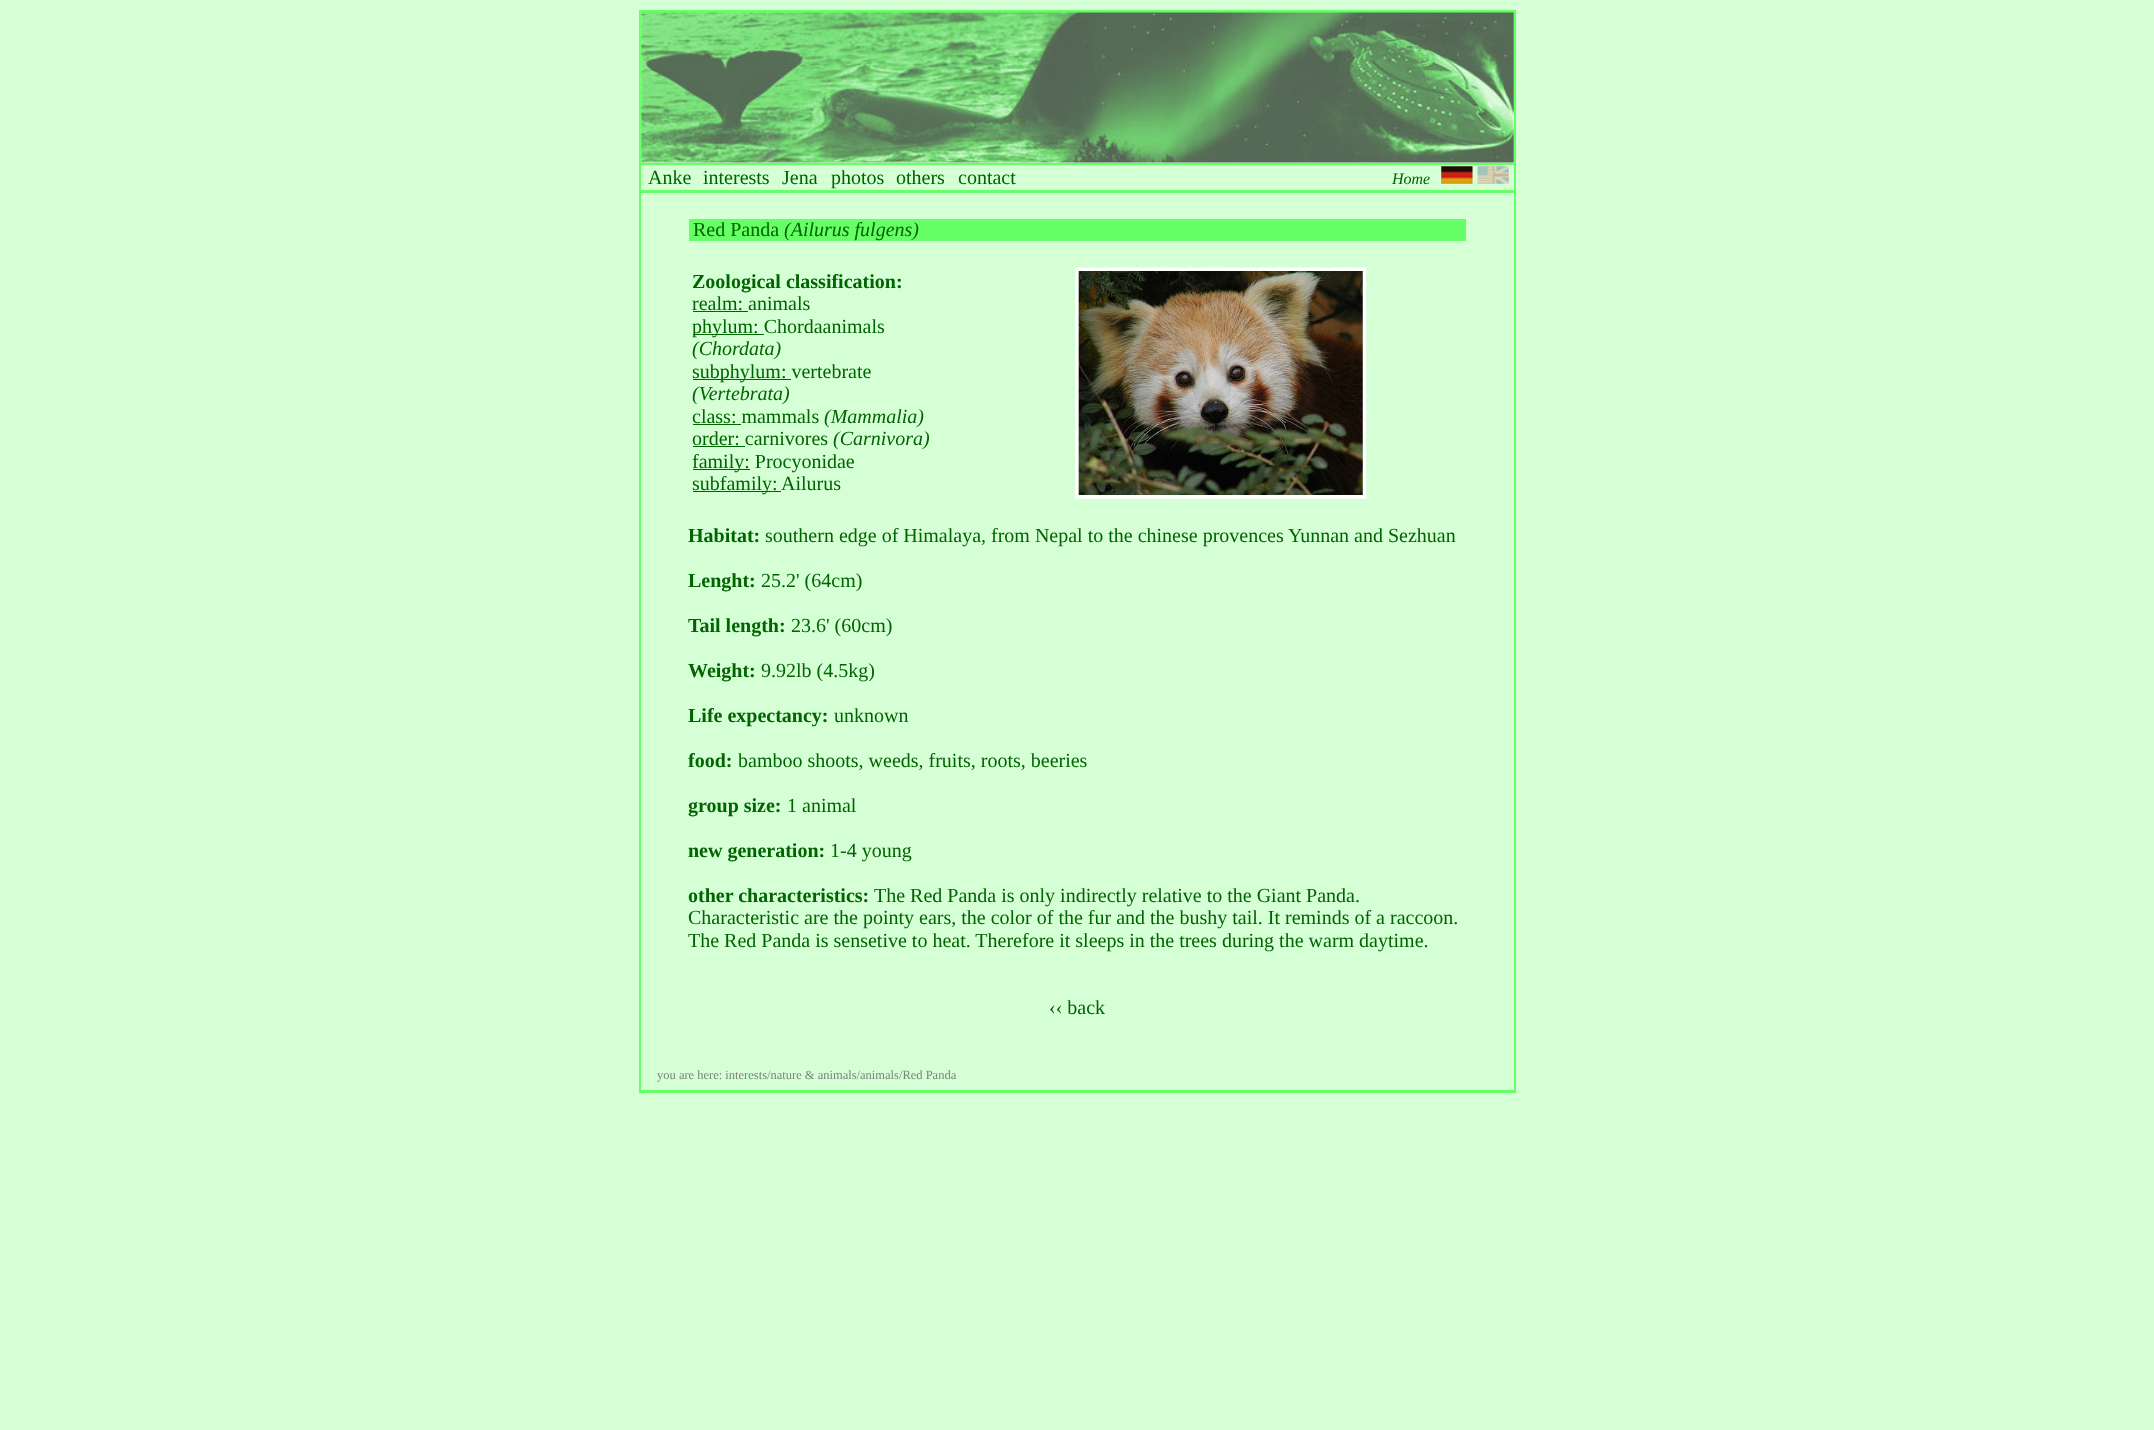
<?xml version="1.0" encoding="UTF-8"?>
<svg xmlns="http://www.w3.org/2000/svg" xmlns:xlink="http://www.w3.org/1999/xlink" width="2154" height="1430">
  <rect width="100%" height="100%" fill="#d5ffd5" />
  <rect x="639" y="10" width="877" height="1083" fill="#66ff66" />
  <rect x="641" y="13" width="873" height="150" fill="#d5ffd5" />
  <image x="641" y="12" width="873" height="151" xlink:href="image1.png" />
  <rect x="641" y="165" width="873" height="25" fill="#d5ffd5" />
  <image x="1441" y="166" width="32" height="18" xlink:href="image2.png" />
  <image x="1477" y="166" width="32" height="18" xlink:href="image3.png" />
  <rect x="641" y="193" width="873" height="897" fill="#d5ffd5" />
  <rect x="689" y="219" width="777" height="22" fill="#66ff66" />
  <rect x="693" y="311" width="55" height="1" fill="#006400" />
  <rect x="693" y="334" width="71" height="1" fill="#006400" />
  <rect x="693" y="379" width="98" height="1" fill="#006400" />
  <rect x="693" y="424" width="48" height="1" fill="#006400" />
  <rect x="693" y="446" width="52" height="1" fill="#006400" />
  <rect x="693" y="469" width="57" height="1" fill="#006400" />
  <rect x="693" y="491" width="88" height="1" fill="#006400" />
  <image x="1075" y="267" width="292" height="232" xlink:href="image4.png" />
  <text x="648" y="184" style="font-family: Liberation Serif; font-size: 20px; fill: #006400">Anke</text>
  <text x="703" y="184" style="font-family: Liberation Serif; font-size: 20px; fill: #006400">interests</text>
  <text x="782" y="184" style="font-family: Liberation Serif; font-size: 20px; fill: #006400">Jena</text>
  <text x="831" y="184" style="font-family: Liberation Serif; font-size: 20px; fill: #006400">photos</text>
  <text x="896" y="184" style="font-family: Liberation Serif; font-size: 20px; fill: #006400">others</text>
  <text x="958" y="184" style="font-family: Liberation Serif; font-size: 20px; fill: #006400">contact</text>
  <text x="1392" y="184" style="font-family: Liberation Serif; font-size: 16px; font-style: italic; fill: #006400">Home</text>
  <text x="693" y="236" style="font-family: Liberation Serif; font-size: 20px; fill: #006400">Red Panda</text>
  <text x="784" y="236" style="font-family: Liberation Serif; font-size: 20px; font-style: italic; fill: #006400">(Ailurus fulgens)</text>
  <text x="692" y="288" style="font-family: Liberation Serif; font-size: 20px; font-weight: bold; fill: #006400">Zoological classification:</text>
  <text x="692" y="310" style="font-family: Liberation Serif; font-size: 20px; fill: #006400">realm: animals</text>
  <text x="692" y="333" style="font-family: Liberation Serif; font-size: 20px; fill: #006400">phylum: Chordaanimals</text>
  <text x="692" y="355" style="font-family: Liberation Serif; font-size: 20px; font-style: italic; fill: #006400">(Chordata)</text>
  <text x="692" y="378" style="font-family: Liberation Serif; font-size: 20px; fill: #006400">subphylum: vertebrate</text>
  <text x="692" y="400" style="font-family: Liberation Serif; font-size: 20px; font-style: italic; fill: #006400">(Vertebrata)</text>
  <text x="692" y="423" style="font-family: Liberation Serif; font-size: 20px; fill: #006400">class: mammals</text>
  <text x="824" y="423" style="font-family: Liberation Serif; font-size: 20px; font-style: italic; fill: #006400">(Mammalia)</text>
  <text x="692" y="445" style="font-family: Liberation Serif; font-size: 20px; fill: #006400">order: carnivores</text>
  <text x="833" y="445" style="font-family: Liberation Serif; font-size: 20px; font-style: italic; fill: #006400">(Carnivora)</text>
  <text x="692" y="468" style="font-family: Liberation Serif; font-size: 20px; fill: #006400">family: Procyonidae</text>
  <text x="692" y="490" style="font-family: Liberation Serif; font-size: 20px; fill: #006400">subfamily:</text>
  <text x="781" y="490" style="font-family: Liberation Serif; font-size: 20px; fill: #006400">Ailurus</text>
  <text x="688" y="542" style="font-family: Liberation Serif; font-size: 20px; font-weight: bold; fill: #006400">Habitat:</text>
  <text x="765" y="542" style="font-family: Liberation Serif; font-size: 20px; fill: #006400">southern edge of Himalaya, from Nepal to the chinese provences Yunnan and Sezhuan</text>
  <text x="688" y="587" style="font-family: Liberation Serif; font-size: 20px; font-weight: bold; fill: #006400">Lenght:</text>
  <text x="761" y="587" style="font-family: Liberation Serif; font-size: 20px; fill: #006400">25.2' (64cm)</text>
  <text x="688" y="632" style="font-family: Liberation Serif; font-size: 20px; font-weight: bold; fill: #006400">Tail length:</text>
  <text x="791" y="632" style="font-family: Liberation Serif; font-size: 20px; fill: #006400">23.6' (60cm)</text>
  <text x="688" y="677" style="font-family: Liberation Serif; font-size: 20px; font-weight: bold; fill: #006400">Weight:</text>
  <text x="761" y="677" style="font-family: Liberation Serif; font-size: 20px; fill: #006400">9.92lb (4.5kg)</text>
  <text x="688" y="722" style="font-family: Liberation Serif; font-size: 20px; font-weight: bold; fill: #006400">Life expectancy:</text>
  <text x="834" y="722" style="font-family: Liberation Serif; font-size: 20px; fill: #006400">unknown</text>
  <text x="688" y="767" style="font-family: Liberation Serif; font-size: 20px; font-weight: bold; fill: #006400">food:</text>
  <text x="738" y="767" style="font-family: Liberation Serif; font-size: 20px; fill: #006400">bamboo shoots, weeds, fruits, roots, beeries</text>
  <text x="688" y="812" style="font-family: Liberation Serif; font-size: 20px; font-weight: bold; fill: #006400">group size:</text>
  <text x="787" y="812" style="font-family: Liberation Serif; font-size: 20px; fill: #006400">1 animal</text>
  <text x="688" y="857" style="font-family: Liberation Serif; font-size: 20px; font-weight: bold; fill: #006400">new generation:</text>
  <text x="830" y="857" style="font-family: Liberation Serif; font-size: 20px; fill: #006400">1-4 young</text>
  <text x="688" y="902" style="font-family: Liberation Serif; font-size: 20px; font-weight: bold; fill: #006400">other characteristics:</text>
  <text x="874" y="902" style="font-family: Liberation Serif; font-size: 20px; fill: #006400">The Red Panda is only indirectly relative to the Giant Panda.</text>
  <text x="688" y="924" style="font-family: Liberation Serif; font-size: 20px; fill: #006400">Characteristic are the pointy ears, the color of the fur and the bushy tail. It reminds of a raccoon.</text>
  <text x="688" y="947" style="font-family: Liberation Serif; font-size: 20px; fill: #006400">The Red Panda is sensetive to heat. Therefore it sleeps in the trees during the warm daytime.</text>
  <text x="1049" y="1014" style="font-family: Liberation Serif; font-size: 20px; fill: #006400">‹‹ back</text>
  <text x="657" y="1079" style="font-family: Liberation Serif; font-size: 12.5px; fill: #808080">you are here: interests/nature &amp; animals/animals/Red Panda</text>
</svg>
